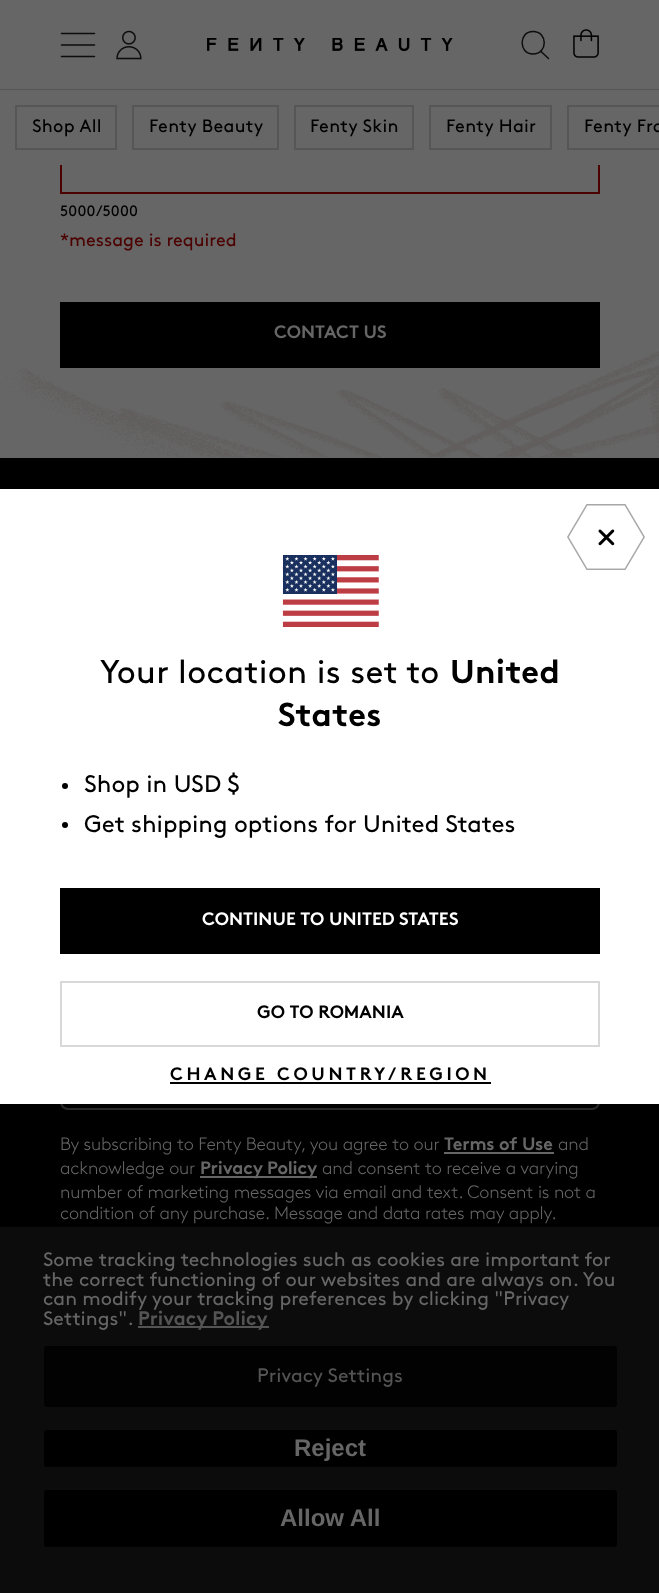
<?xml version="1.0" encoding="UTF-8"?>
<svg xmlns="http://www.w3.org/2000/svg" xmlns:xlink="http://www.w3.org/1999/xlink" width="659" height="1593">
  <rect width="100%" height="100%" fill="#666666" />
  <rect x="61" y="-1" width="538" height="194" fill="none" stroke="#4c0000" stroke-width="2" />
  <rect x="60" width="540" height="89" fill="#666666" />
  <rect y="89" width="659" height="1" fill="#565656" />
  <path d="M 61.5 33.5 h 33 m -33 11.5 h 33 m -33 11.5 h 33" fill="none" stroke="#0e0c0d" stroke-width="1.5" stroke-linecap="round" />
  <image x="116" y="30" width="26" height="30" xlink:href="image1.png" />
  <image x="207" y="38" width="246" height="14" xlink:href="image2.png" />
  <path d="M 533 54 c 15 0 15 -22.5 0 -22.5 c -14.5 0 -14.5 22.5 0 22.5 z m 15.5 4.5 l -8 -7.5" fill="none" stroke="#0e0c0d" stroke-width="1.5" stroke-linecap="round" />
  <image x="573" y="29" width="26" height="29" xlink:href="image3.png" />
  <rect x="60" y="90" width="540" height="75" fill="#666666" />
  <rect x="16" y="106" width="100" height="43" fill="none" stroke="#565656" stroke-width="2" />
  <rect x="133" y="106" width="145" height="43" fill="none" stroke="#565656" stroke-width="2" />
  <rect x="295" y="106" width="118" height="43" fill="none" stroke="#565656" stroke-width="2" />
  <rect x="430" y="106" width="121" height="43" fill="none" stroke="#565656" stroke-width="2" />
  <rect x="568" y="106" width="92" height="43" fill="none" stroke="#565656" stroke-width="2" />
  <image x="4" y="351" width="655" height="106" xlink:href="image4.png" />
  <rect x="60" y="302" width="540" height="66" fill="#000000" />
  <rect y="458" width="659" height="769" fill="#000000" />
  <rect x="61" y="1051" width="538" height="58" rx="7" fill="none" stroke="#292929" stroke-width="2" />
  <rect y="489" width="659" height="615" fill="#ffffff" />
  <image x="567" y="504" width="78" height="66" xlink:href="image5.png" />
  <image x="282" y="555" width="97" height="72" xlink:href="image6.png" />
  <circle cx="65" cy="786" r="3" fill="#000000" />
  <circle cx="65" cy="825" r="3" fill="#000000" />
  <rect x="60" y="888" width="540" height="66" fill="#000000" />
  <rect x="61" y="982" width="538" height="64" fill="none" stroke="#d8d8d8" stroke-width="2" />
  <rect x="170" y="1082" width="321" height="2" fill="#000000" />
  <rect x="444" y="1152" width="110" height="2" fill="#666666" />
  <rect x="200" y="1176" width="117" height="2" fill="#666666" />
  <rect y="1227" width="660" height="366" fill="#000000" fill-opacity="0.18" filter="blur(4.5px)" />
  <rect y="1227" width="659" height="366" fill="#0c0c0c" />
  <rect x="138" y="1326" width="131" height="2" fill="#545454" />
  <rect x="44" y="1346" width="573" height="61" rx="3" fill="#020202" />
  <rect x="45" y="1431" width="571" height="35" rx="2" fill="#000000" stroke="#000000" stroke-width="2" />
  <rect x="45" y="1491" width="571" height="55" rx="2" fill="#000000" stroke="#000000" stroke-width="2" />
  <text x="32" y="132" style="font-family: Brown; font-size: 18px; letter-spacing: 0.25px; fill: #000000">Shop All</text>
  <text x="149" y="132" style="font-family: Brown; font-size: 18px; letter-spacing: 0.25px; fill: #000000">Fenty Beauty</text>
  <text x="310" y="132" style="font-family: Brown; font-size: 18px; letter-spacing: 0.25px; fill: #000000">Fenty Skin</text>
  <text x="446" y="132" style="font-family: Brown; font-size: 18px; letter-spacing: 0.25px; fill: #000000">Fenty Hair</text>
  <text x="584" y="132" style="font-family: Brown; font-size: 18px; letter-spacing: 0.25px; fill: #000000">Fenty Fra</text>
  <text x="60" y="216" style="font-family: Brown; font-size: 15px; letter-spacing: 0.25px; fill: #000000">5000/5000</text>
  <text x="60" y="246" style="font-family: Brown; font-size: 18px; fill: #4c0000">*message is required</text>
  <text x="274" y="338" style="font-family: Brown; font-size: 18px; font-weight: bold; fill: #666666">CONTACT US</text>
  <text x="100" y="683" style="font-family: Brown; font-size: 33px; letter-spacing: 0.3px; fill: #000000">Your location is set to</text>
  <text x="450" y="683" style="font-family: Brown; font-size: 33px; font-weight: bold; letter-spacing: 0.3px; fill: #000000">United</text>
  <text x="278" y="726" style="font-family: Brown; font-size: 33px; font-weight: bold; letter-spacing: 0.3px; fill: #000000">States</text>
  <text x="84" y="792" style="font-family: Brown; font-size: 24px; fill: #000000">Shop in USD $</text>
  <text x="84" y="832" style="font-family: Brown; font-size: 24px; fill: #000000">Get shipping options for United States</text>
  <text x="202" y="925" style="font-family: Brown; font-size: 18px; font-weight: bold; fill: #ffffff">CONTINUE TO UNITED STATES</text>
  <text x="257" y="1018" style="font-family: Brown; font-size: 18px; font-weight: bold; fill: #000000">GO TO ROMANIA</text>
  <text x="170" y="1080" style="font-family: Brown; font-size: 18px; font-weight: bold; letter-spacing: 3.6px; fill: #000000">CHANGE COUNTRY/REGION</text>
  <text x="60" y="1150" style="font-family: Brown; font-size: 18px; font-weight: 300; letter-spacing: -0.18px; fill: #666666">By subscribing to Fenty Beauty, you agree to our</text>
  <text x="444" y="1150" style="font-family: Brown; font-size: 18px; font-weight: bold; letter-spacing: -0.18px; fill: #666666">Terms of Use</text>
  <text x="558" y="1150" style="font-family: Brown; font-size: 18px; font-weight: 300; letter-spacing: -0.18px; fill: #666666">and</text>
  <text x="60" y="1174" style="font-family: Brown; font-size: 18px; font-weight: 300; letter-spacing: -0.18px; fill: #666666">acknowledge our</text>
  <text x="200" y="1174" style="font-family: Brown; font-size: 18px; font-weight: bold; letter-spacing: -0.18px; fill: #666666">Privacy Policy</text>
  <text x="322" y="1174" style="font-family: Brown; font-size: 18px; font-weight: 300; letter-spacing: -0.18px; fill: #666666">and consent to receive a varying</text>
  <text x="60" y="1198" style="font-family: Brown; font-size: 18px; font-weight: 300; letter-spacing: -0.18px; fill: #666666">number of marketing messages via email and text. Consent is not a</text>
  <text x="60" y="1219" style="font-family: Brown; font-size: 18px; font-weight: 300; letter-spacing: -0.18px; fill: #666666">condition of any purchase. Message and data rates may apply.</text>
  <text x="43" y="1266" style="font-family: Brown; font-size: 19.5px; fill: #666666">Some tracking technologies such as cookies are important for</text>
  <text x="43" y="1286" style="font-family: Brown; font-size: 19.5px; fill: #666666">the correct functioning of our websites and are always on. You</text>
  <text x="43" y="1305" style="font-family: Brown; font-size: 19.5px; fill: #666666">can modify your tracking preferences by clicking "Privacy</text>
  <text x="43" y="1325" style="font-family: Brown; font-size: 19.5px; fill: #666666">Settings".</text>
  <text x="138" y="1325" style="font-family: Brown; font-size: 19.5px; font-weight: bold; fill: #545454">Privacy Policy</text>
  <text x="257" y="1382" style="font-family: Brown; font-size: 19.5px; fill: #545454">Privacy Settings</text>
  <text x="294" y="1456" style="font-family: Liberation Sans; font-size: 24px; font-weight: bold; fill: #666666">Reject</text>
  <text x="280" y="1526" style="font-family: Liberation Sans; font-size: 24px; font-weight: bold; fill: #666666">Allow All</text>
</svg>
